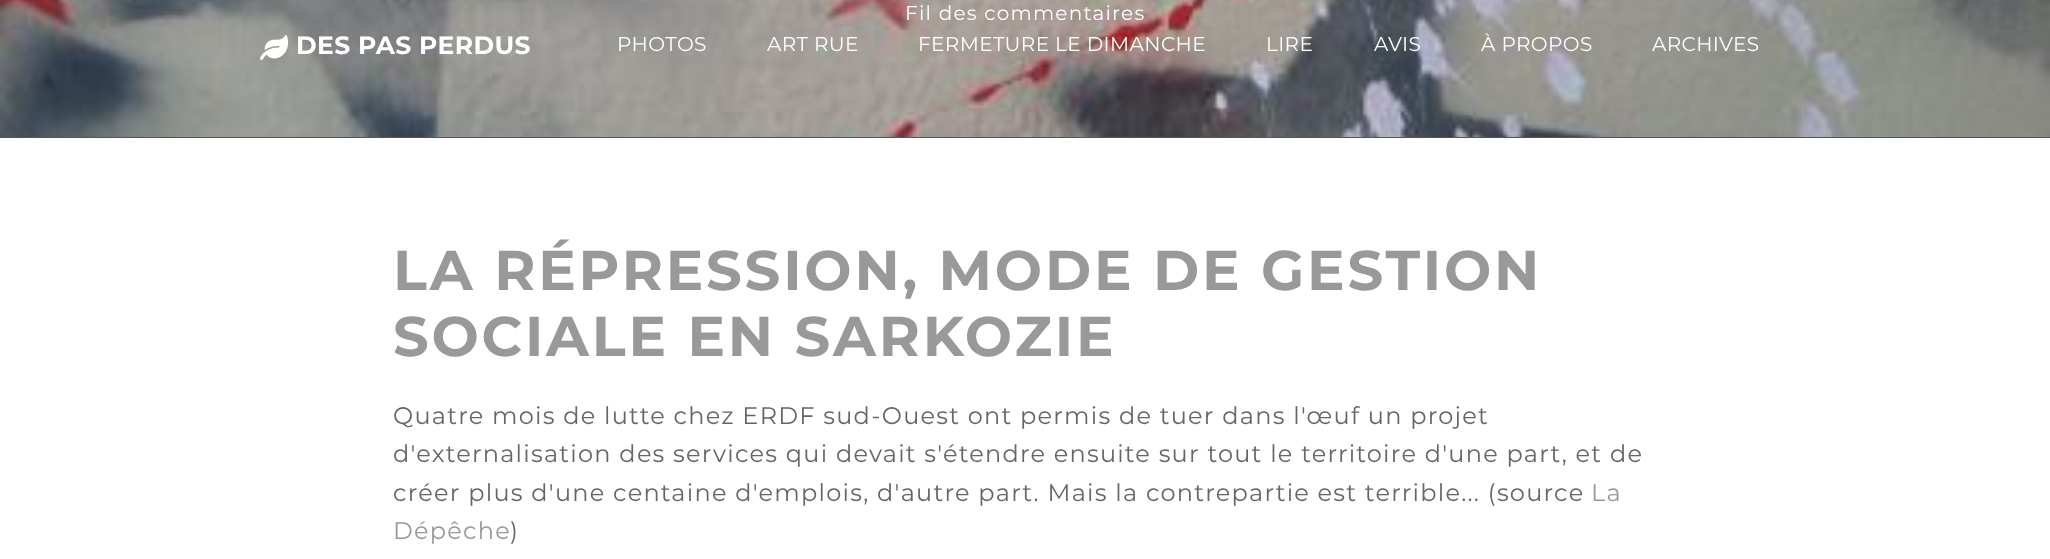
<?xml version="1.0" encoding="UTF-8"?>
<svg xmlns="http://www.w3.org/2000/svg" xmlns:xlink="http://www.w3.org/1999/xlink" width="2050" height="559">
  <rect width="100%" height="100%" fill="#ffffff" />
  <rect y="137" width="2050" height="1" fill="#555555" />
  <image x="0" y="0" width="2050" height="137" xlink:href="image1.png" />
  <image x="260" y="35" width="29" height="25" xlink:href="image2.png" />
  <text x="905" y="20" style="font-family: Montserrat; font-size: 20px; letter-spacing: 1.25px; fill: #ffffff">Fil des commentaires</text>
  <text x="296" y="54" style="font-family: Montserrat; font-size: 25px; font-weight: bold; letter-spacing: 0.4px; fill: #ffffff">DES PAS PERDUS</text>
  <text x="617" y="51" style="font-family: Montserrat; font-size: 20px; letter-spacing: 0.4px; fill: #ffffff">PHOTOS</text>
  <text x="767" y="51" style="font-family: Montserrat; font-size: 20px; letter-spacing: 0.4px; fill: #ffffff">ART RUE</text>
  <text x="918" y="51" style="font-family: Montserrat; font-size: 20px; letter-spacing: 0.4px; fill: #ffffff">FERMETURE LE DIMANCHE</text>
  <text x="1266" y="51" style="font-family: Montserrat; font-size: 20px; letter-spacing: 0.4px; fill: #ffffff">LIRE</text>
  <text x="1374" y="51" style="font-family: Montserrat; font-size: 20px; letter-spacing: 0.4px; fill: #ffffff">AVIS</text>
  <text x="1481" y="51" style="font-family: Montserrat; font-size: 20px; letter-spacing: 0.4px; fill: #ffffff">À PROPOS</text>
  <text x="1652" y="51" style="font-family: Montserrat; font-size: 20px; letter-spacing: 0.4px; fill: #ffffff">ARCHIVES</text>
  <text x="393" y="290" style="font-family: Montserrat; font-size: 56px; font-weight: bold; letter-spacing: 2.8px; fill: #999999">LA RÉPRESSION, MODE DE GESTION</text>
  <text x="393" y="356" style="font-family: Montserrat; font-size: 56px; font-weight: bold; letter-spacing: 2.8px; fill: #999999">SOCIALE EN SARKOZIE</text>
  <text x="393" y="424" style="font-family: Montserrat; font-size: 24px; letter-spacing: 1.25px; fill: #666666">Quatre mois de lutte chez ERDF sud-Ouest ont permis de tuer dans l'œuf un projet</text>
  <text x="393" y="462" style="font-family: Montserrat; font-size: 24px; letter-spacing: 1.25px; fill: #666666">d'externalisation des services qui devait s'étendre ensuite sur tout le territoire d'une part, et de</text>
  <text x="393" y="501" style="font-family: Montserrat; font-size: 24px; letter-spacing: 1.25px; fill: #666666">créer plus d'une centaine d'emplois, d'autre part. Mais la contrepartie est terrible... (source</text>
  <text x="1591" y="501" style="font-family: Montserrat; font-size: 24px; letter-spacing: 1.25px; fill: #999999">La</text>
  <text x="393" y="539" style="font-family: Montserrat; font-size: 24px; letter-spacing: 1.25px; fill: #999999">Dépêche</text>
  <text x="510" y="539" style="font-family: Montserrat; font-size: 24px; letter-spacing: 1.25px; fill: #666666">)</text>
</svg>
